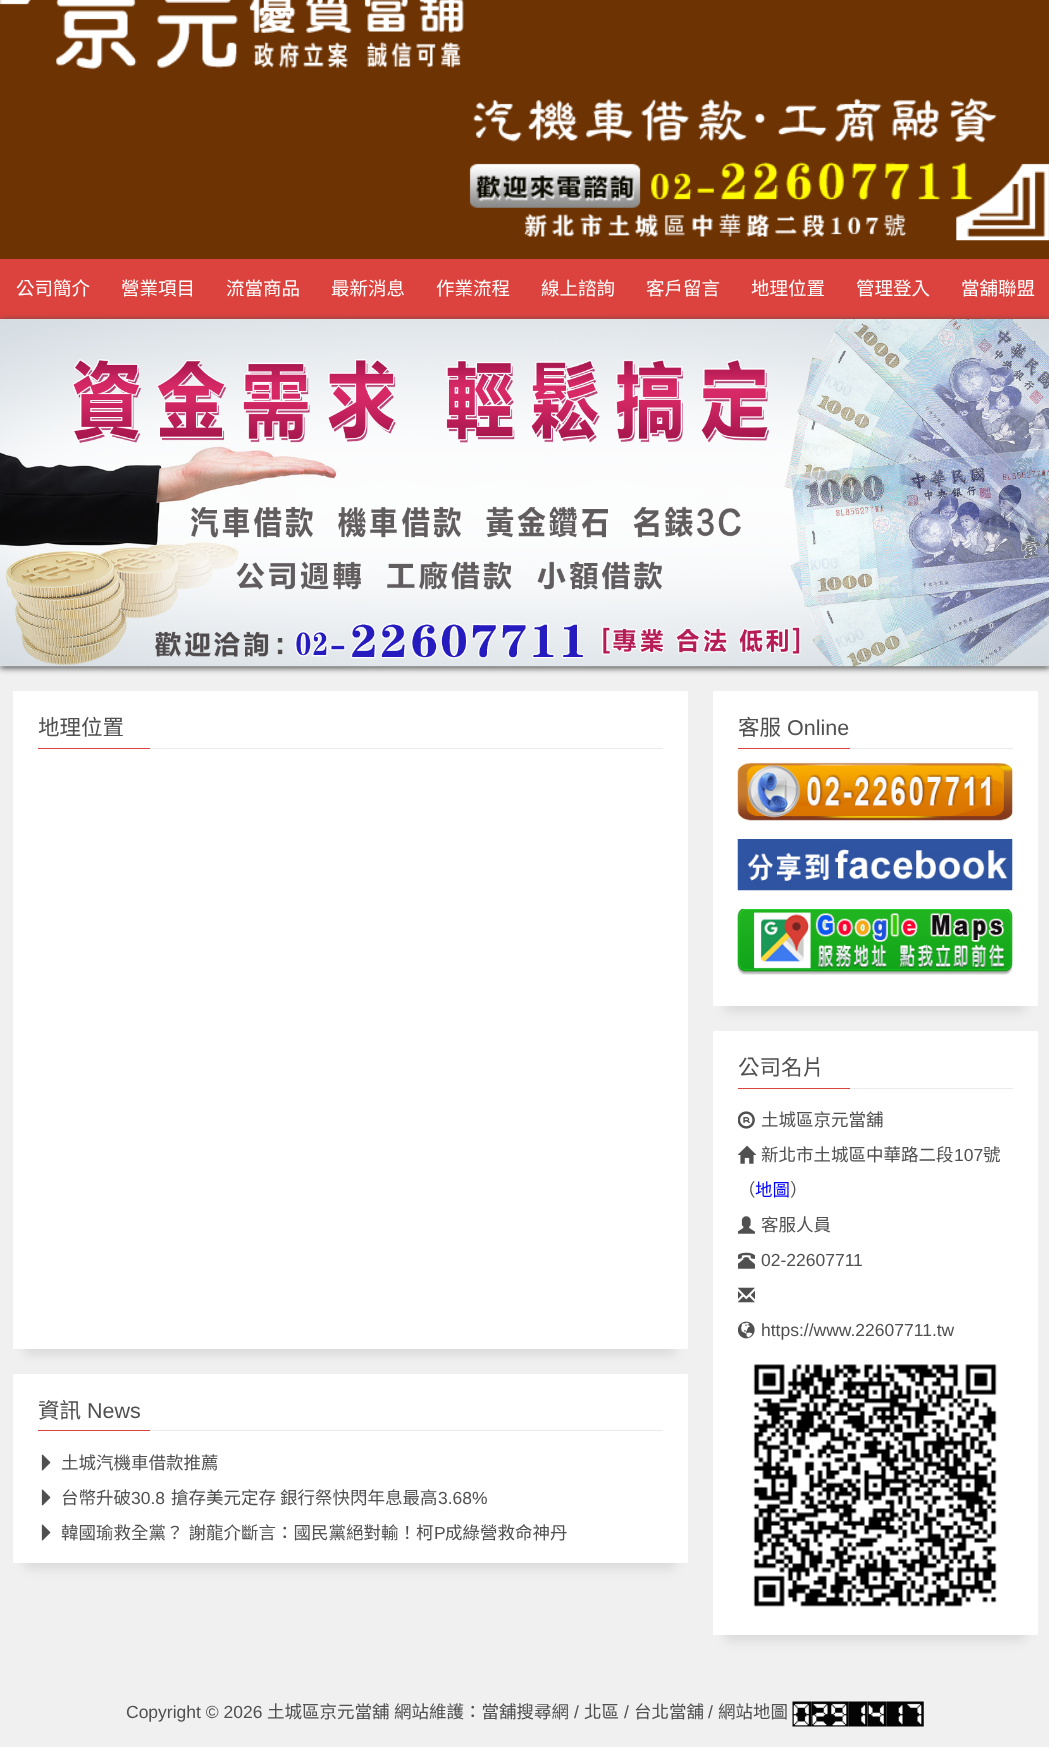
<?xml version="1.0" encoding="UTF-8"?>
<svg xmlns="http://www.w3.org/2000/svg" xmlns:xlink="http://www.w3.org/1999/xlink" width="1049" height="1747">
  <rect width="100%" height="100%" fill="#f0f0f0" />
  <rect width="1049" height="259" fill="#6e3303" />
  <image x="0" y="0" width="464" height="70" xlink:href="image1.png" />
  <image x="469" y="97" width="580" height="144" xlink:href="image2.png" />
  <rect y="259" width="1049" height="60" fill="#dd433e" />
  <rect y="320" width="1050" height="348" fill="#4a4a4a" filter="blur(3px)" />
  <image x="0" y="319" width="1049" height="348" xlink:href="image3.png" />
  <rect x="25" y="721" width="650" height="633" fill="#000000" fill-opacity="0.1" filter="blur(6px)" />
  <rect x="13" y="691" width="675" height="658" rx="1" fill="#ffffff" />
  <rect x="150" y="748" width="513" height="1" fill="#ebebeb" />
  <rect x="38" y="748" width="112" height="1" fill="#dd433e" />
  <rect x="25" y="1404" width="650" height="164" fill="#000000" fill-opacity="0.1" filter="blur(6px)" />
  <rect x="13" y="1374" width="675" height="189" rx="1" fill="#ffffff" />
  <rect x="150" y="1430" width="513" height="1" fill="#ebebeb" />
  <rect x="38" y="1430" width="112" height="1" fill="#dd433e" />
  <image x="41" y="1454" width="10" height="17" xlink:href="image4.png" />
  <image x="41" y="1489" width="10" height="17" xlink:href="image4.png" />
  <image x="41" y="1524" width="10" height="17" xlink:href="image4.png" />
  <rect x="725" y="721" width="300" height="290" fill="#000000" fill-opacity="0.1" filter="blur(6px)" />
  <rect x="713" y="691" width="325" height="315" rx="1" fill="#ffffff" />
  <rect x="850" y="748" width="163" height="1" fill="#ebebeb" />
  <rect x="738" y="748" width="112" height="1" fill="#dd433e" />
  <image x="737" y="762" width="276" height="59" xlink:href="image5.png" />
  <image x="737" y="839" width="276" height="52" xlink:href="image6.png" />
  <image x="737" y="909" width="276" height="66" xlink:href="image7.png" />
  <rect x="725" y="1061" width="300" height="579" fill="#000000" fill-opacity="0.1" filter="blur(6px)" />
  <rect x="713" y="1031" width="325" height="604" rx="1" fill="#ffffff" />
  <rect x="850" y="1088" width="163" height="1" fill="#ebebeb" />
  <rect x="738" y="1088" width="112" height="1" fill="#dd433e" />
  <image x="738" y="1111" width="17" height="18" xlink:href="image8.png" />
  <image x="738" y="1145" width="19" height="19" xlink:href="image9.png" />
  <image x="738" y="1216" width="17" height="18" xlink:href="image10.png" />
  <image x="738" y="1252" width="17" height="17" xlink:href="image11.png" />
  <image x="738" y="1287" width="17" height="16" xlink:href="image12.png" />
  <image x="738" y="1321" width="17" height="18" xlink:href="image13.png" />
  <image x="753" y="1364" width="244" height="243" xlink:href="image14.png" />
  <image x="792" y="1701" width="20" height="26" xlink:href="image15.png" />
  <image x="811" y="1701" width="19" height="26" xlink:href="image16.png" />
  <image x="830" y="1701" width="19" height="26" xlink:href="image17.png" />
  <image x="848" y="1701" width="20" height="26" xlink:href="image18.png" />
  <image x="867" y="1701" width="20" height="26" xlink:href="image19.png" />
  <image x="886" y="1701" width="19" height="26" xlink:href="image20.png" />
  <image x="905" y="1701" width="19" height="26" xlink:href="image21.png" />
  <text x="16" y="295" style="font-family: Noto Sans CJK TC; font-size: 18.5px; fill: #ffffff">公司簡介</text>
  <text x="121" y="295" style="font-family: Noto Sans CJK TC; font-size: 18.5px; fill: #ffffff">營業項目</text>
  <text x="226" y="295" style="font-family: Noto Sans CJK TC; font-size: 18.5px; fill: #ffffff">流當商品</text>
  <text x="331" y="295" style="font-family: Noto Sans CJK TC; font-size: 18.5px; fill: #ffffff">最新消息</text>
  <text x="436" y="295" style="font-family: Noto Sans CJK TC; font-size: 18.5px; fill: #ffffff">作業流程</text>
  <text x="541" y="295" style="font-family: Noto Sans CJK TC; font-size: 18.5px; fill: #ffffff">線上諮詢</text>
  <text x="646" y="295" style="font-family: Noto Sans CJK TC; font-size: 18.5px; fill: #ffffff">客戶留言</text>
  <text x="751" y="295" style="font-family: Noto Sans CJK TC; font-size: 18.5px; fill: #ffffff">地理位置</text>
  <text x="856" y="295" style="font-family: Noto Sans CJK TC; font-size: 18.5px; fill: #ffffff">管理登入</text>
  <text x="961" y="295" style="font-family: Noto Sans CJK TC; font-size: 18.5px; fill: #ffffff">當舖聯盟</text>
  <text x="38" y="735" style="font-family: Noto Sans CJK TC; font-size: 21.5px; fill: #505050">地理位置</text>
  <text x="38" y="1418" style="font-family: Noto Sans CJK TC; font-size: 21.5px; fill: #505050">資訊</text>
  <text x="87" y="1418" style="font-family: Liberation Sans; font-size: 21.5px; fill: #505050">News</text>
  <text x="61" y="1469" style="font-family: Noto Sans CJK TC; font-size: 17.5px; fill: #505050">土城汽機車借款推薦</text>
  <text x="61" y="1504" style="font-family: Noto Sans CJK TC; font-size: 17.5px; fill: #505050">台幣升破</text>
  <text x="131" y="1504" style="font-family: Liberation Sans; font-size: 17.5px; fill: #505050">30.8</text>
  <text x="171" y="1504" style="font-family: Noto Sans CJK TC; font-size: 17.5px; fill: #505050">搶存美元定存 銀行祭快閃年息最高</text>
  <text x="438" y="1504" style="font-family: Liberation Sans; font-size: 17.5px; fill: #505050">3.68%</text>
  <text x="61" y="1539" word-spacing="1" style="font-family: Noto Sans CJK TC; font-size: 17.5px; fill: #505050">韓國瑜救全黨？ 謝龍介斷言：國民黨絕對輸！柯</text>
  <text x="434" y="1539" style="font-family: Liberation Sans; font-size: 17.5px; fill: #505050">P</text>
  <text x="445" y="1539" style="font-family: Noto Sans CJK TC; font-size: 17.5px; fill: #505050">成綠營救命神丹</text>
  <text x="738" y="735" style="font-family: Noto Sans CJK TC; font-size: 21.5px; fill: #505050">客服</text>
  <text x="787" y="735" style="font-family: Liberation Sans; font-size: 21.5px; fill: #505050">Online</text>
  <text x="738" y="1075" style="font-family: Noto Sans CJK TC; font-size: 21.5px; fill: #505050">公司名片</text>
  <text x="761" y="1126" style="font-family: Noto Sans CJK TC; font-size: 17.5px; fill: #505050">土城區京元當舖</text>
  <text x="761" y="1161" style="font-family: Noto Sans CJK TC; font-size: 17.5px; fill: #505050">新北市土城區中華路二段</text>
  <text x="954" y="1161" style="font-family: Liberation Sans; font-size: 17.5px; fill: #505050">107</text>
  <text x="983" y="1161" style="font-family: Noto Sans CJK TC; font-size: 17.5px; fill: #505050">號</text>
  <text x="738" y="1196" style="font-family: Noto Sans CJK TC; font-size: 17.5px; fill: #505050">（</text>
  <text x="755" y="1196" style="font-family: Noto Sans CJK TC; font-size: 17.5px; fill: #0000ff">地圖</text>
  <text x="790" y="1196" style="font-family: Noto Sans CJK TC; font-size: 17.5px; fill: #505050">）</text>
  <text x="761" y="1231" style="font-family: Noto Sans CJK TC; font-size: 17.5px; fill: #505050">客服人員</text>
  <text x="761" y="1266" style="font-family: Liberation Sans; font-size: 17.5px; fill: #505050">02-22607711</text>
  <text x="761" y="1336" style="font-family: Liberation Sans; font-size: 17.5px; fill: #505050">https://www.22607711.tw</text>
  <text x="126" y="1718" style="font-family: Liberation Sans; font-size: 17.5px; fill: #505050">Copyright © 2026</text>
  <text x="267" y="1718" style="font-family: Noto Sans CJK TC; font-size: 17.5px; fill: #505050">土城區京元當舖</text>
  <text x="394" y="1718" style="font-family: Noto Sans CJK TC; font-size: 17.5px; fill: #505050">網站維護：當舖搜尋網</text>
  <text x="574" y="1718" style="font-family: Liberation Sans; font-size: 17.5px; fill: #505050">/</text>
  <text x="584" y="1718" style="font-family: Noto Sans CJK TC; font-size: 17.5px; fill: #505050">北區</text>
  <text x="624" y="1718" style="font-family: Liberation Sans; font-size: 17.5px; fill: #505050">/</text>
  <text x="634" y="1718" style="font-family: Noto Sans CJK TC; font-size: 17.5px; fill: #505050">台北當舖</text>
  <text x="708" y="1718" style="font-family: Liberation Sans; font-size: 17.5px; fill: #505050">/</text>
  <text x="718" y="1718" style="font-family: Noto Sans CJK TC; font-size: 17.5px; fill: #505050">網站地圖</text>
</svg>
